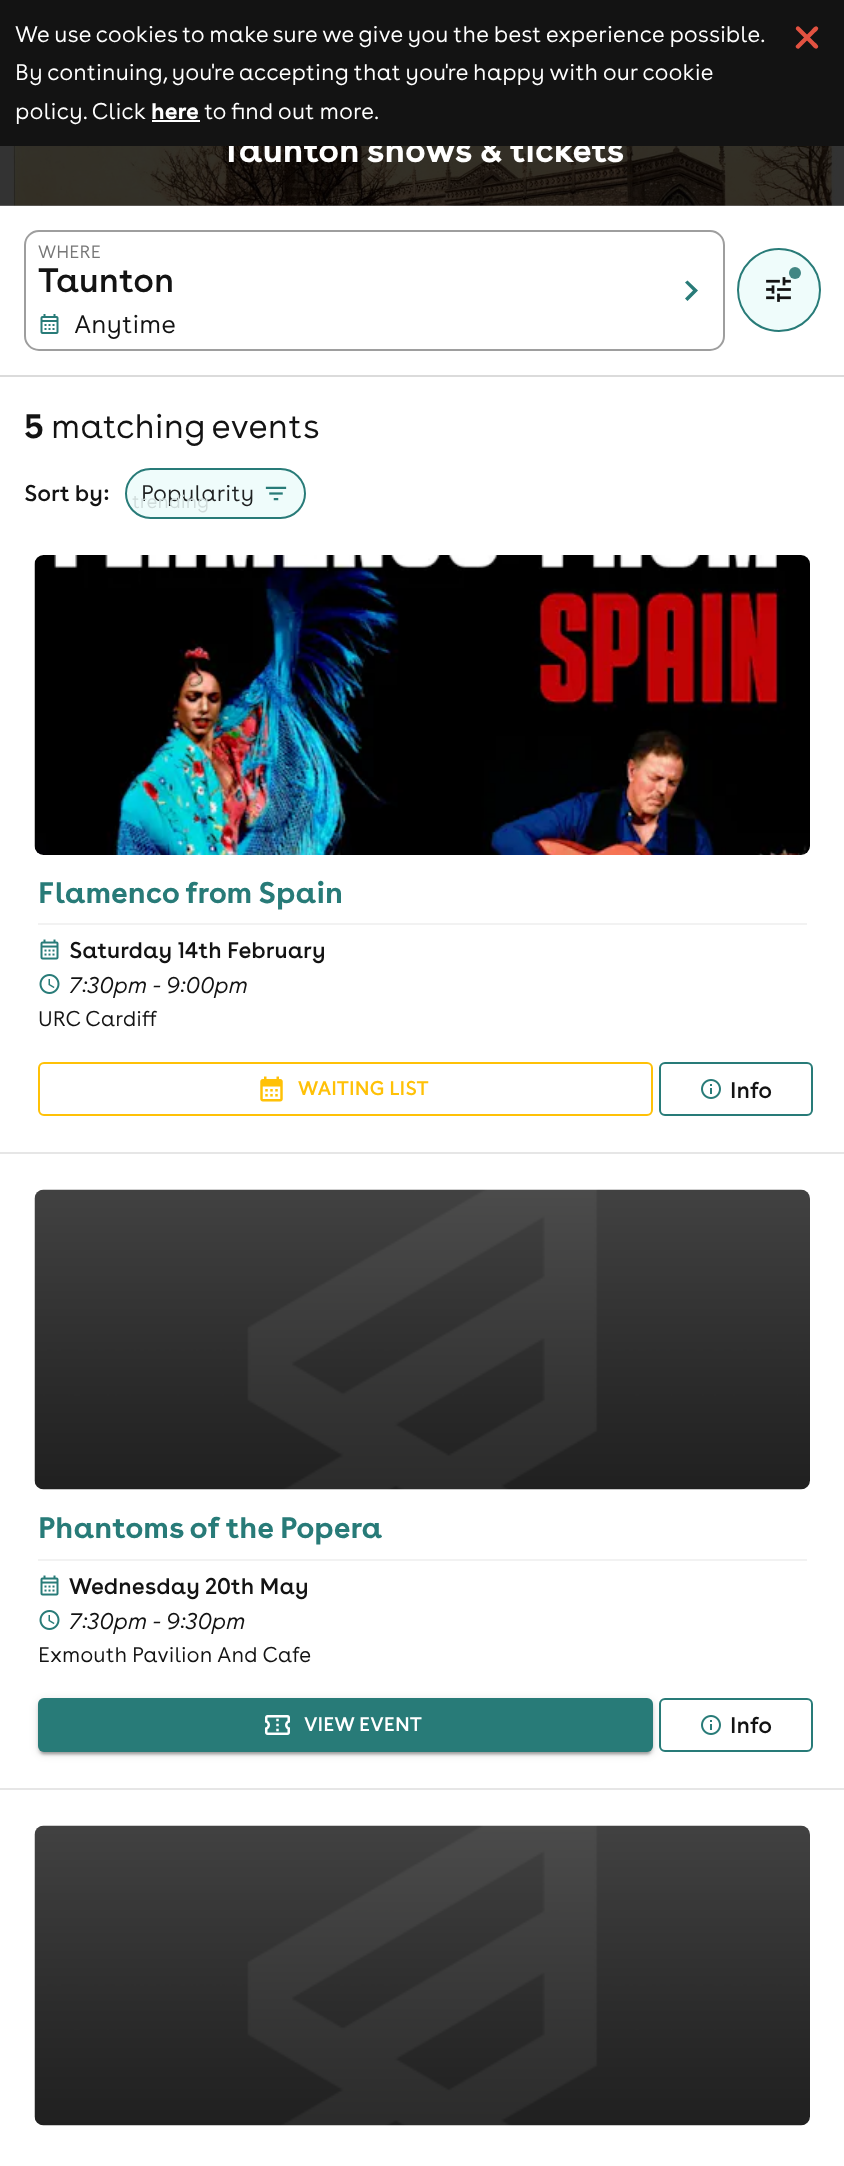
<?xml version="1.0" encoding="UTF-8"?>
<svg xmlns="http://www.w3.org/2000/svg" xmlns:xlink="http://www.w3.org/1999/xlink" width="844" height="2166">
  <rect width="100%" height="100%" fill="#ffffff" />
  <image x="0" y="205" width="844" height="1" xlink:href="image2.png" />
  <image x="0" y="146" width="844" height="60" xlink:href="image1.png" />
  <rect y="375" width="844" height="2" fill="#dbdbdb" />
  <rect x="25" y="231" width="699" height="119" rx="14" fill="none" stroke="#9e9e9e" stroke-width="2" />
  <image x="40" y="314" width="19" height="20" xlink:href="image3.png" />
  <path d="M 687.5 280.5 l -2.5 2 l 8 8 l -8 8 l 2.5 2.5 l 10.5 -10.5 z" fill="#287b78" />
  <circle cx="779" cy="290" r="41" fill="#effcfb" stroke="#287b78" stroke-width="2" />
  <image x="766" y="277" width="25" height="25" xlink:href="image4.png" />
  <circle cx="795" cy="273" r="6" fill="#418683" />
  <rect x="126" y="469" width="179" height="49" rx="24.5" fill="#effcfb" stroke="#287b78" stroke-width="2" />
  <image x="265" y="486" width="22" height="15" xlink:href="image5.png" />
  <rect y="1152" width="844" height="2" fill="#e6e6e6" />
  <image x="34" y="555" width="776" height="300" xlink:href="image6.png" />
  <rect x="38" y="923" width="769" height="2" fill="#f2f2f2" />
  <image x="40" y="939" width="19" height="21" xlink:href="image7.png" />
  <image x="39" y="974" width="21" height="20" xlink:href="image8.png" />
  <rect x="39" y="1063" width="613" height="52" rx="5" fill="none" stroke="#ffc107" stroke-width="2" />
  <image x="260" y="1076" width="23" height="26" xlink:href="image9.png" />
  <rect x="660" y="1063" width="152" height="52" rx="5" fill="none" stroke="#287b78" stroke-width="2" />
  <image x="701" y="1079" width="20" height="20" xlink:href="image10.png" />
  <rect y="1788" width="844" height="2" fill="#e6e6e6" />
  <image x="34" y="1189" width="776" height="301" xlink:href="image11.png" />
  <rect x="38" y="1559" width="769" height="2" fill="#f2f2f2" />
  <image x="40" y="1575" width="19" height="21" xlink:href="image7.png" />
  <image x="39" y="1610" width="21" height="20" xlink:href="image8.png" />
  <rect x="660" y="1699" width="152" height="52" rx="5" fill="none" stroke="#287b78" stroke-width="2" />
  <rect x="38" y="1700" width="615" height="54" rx="6" fill="#000000" fill-opacity="0.12" filter="blur(4px)" />
  <rect x="38" y="1701" width="615" height="54" rx="6" fill="#000000" fill-opacity="0.14" filter="blur(1.5px)" />
  <rect x="41" y="1706" width="609" height="48" rx="3" fill="#000000" fill-opacity="0.2" filter="blur(1px)" />
  <rect x="38" y="1698" width="615" height="54" rx="6" fill="#287b78" />
  <image x="265" y="1715" width="25" height="20" xlink:href="image12.png" />
  <image x="701" y="1715" width="20" height="20" xlink:href="image10.png" />
  <image x="34" y="1825" width="776" height="301" xlink:href="image13.png" />
  <text x="221" y="162" style="font-family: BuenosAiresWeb; font-size: 36px; font-weight: bold; fill: #ffffff">Taunton shows &amp; tickets</text>
  <rect width="844" height="146" fill="#131313" />
  <path d="M 796.5 45 l 15 -15 c 1 -1 4 -5.5 6 -3 c 2.5 2 -2 5 -3 6 l -15.5 15.5 c -2.5 1 -4.5 -2 -2.5 -3.5 z" fill="#e25241" />
  <path d="M 799.5 27 l 15 15 c 1 1 5.5 4 3 6 c -2 2.5 -5 -2 -6 -3 l -15.5 -15.5 c -1 -2.5 2 -4.5 3.5 -2.5 z" fill="#e25241" />
  <text x="204" y="119" style="font-family: BuenosAiresWeb; font-size: 24px; font-weight: 300; fill: #ffffff">to find out more.</text>
  <text x="151" y="119" style="font-family: BuenosAiresWeb; font-size: 24px; font-weight: bold; fill: #ffffff">here</text>
  <rect x="152" y="120" width="48" height="2" fill="#ffffff" />
  <text x="15" y="119" style="font-family: BuenosAiresWeb; font-size: 24px; font-weight: 300; fill: #ffffff">policy. Click</text>
  <text x="15" y="80" style="font-family: BuenosAiresWeb; font-size: 24px; font-weight: 300; fill: #ffffff">By continuing, you're accepting that you're happy with our cookie</text>
  <text x="15" y="42" style="font-family: BuenosAiresWeb; font-size: 24px; font-weight: 300; fill: #ffffff">We use cookies to make sure we give you the best experience possible.</text>
  <text x="38" y="258" style="font-family: BuenosAiresWeb; font-size: 19px; font-weight: 300; fill: #777777">WHERE</text>
  <text x="38" y="292" style="font-family: BuenosAiresWeb; font-size: 36px; fill: #131313">Taunton</text>
  <text x="74" y="333" style="font-family: BuenosAiresWeb; font-size: 27px; font-weight: 300; fill: #131313">Anytime</text>
  <text x="24" y="438" style="font-family: BuenosAiresWeb; font-size: 36px; font-weight: bold; fill: #131313">5</text>
  <text x="51" y="438" word-spacing="-1" style="font-family: BuenosAiresWeb; font-size: 36px; font-weight: 300; fill: #131313">matching event</text>
  <text x="303" y="438" style="font-family: BuenosAiresWeb; font-size: 36px; font-weight: 300; fill: #131313">s</text>
  <text x="24" y="501" style="font-family: BuenosAiresWeb; font-size: 24px; fill: #131313">Sort by:</text>
  <text x="141" y="501" style="font-family: BuenosAiresWeb; font-size: 24px; font-weight: 300; fill: #1f2121">Popularity</text>
  <text x="132" y="508" style="font-family: BuenosAiresWeb; font-size: 20px; font-weight: 300; fill: #d0dcdb">trending</text>
  <text x="38" y="903" style="font-family: BuenosAiresWeb; font-size: 31.5px; font-weight: bold; fill: #287b78">Flamenco from Spain</text>
  <text x="69" y="958" style="font-family: BuenosAiresWeb; font-size: 24px; fill: #131313">Saturday 14th February</text>
  <text x="69" y="993" style="font-family: BuenosAiresWeb; font-size: 24px; font-weight: 300; font-style: italic; fill: #131313">7:30pm - 9:00pm</text>
  <text x="38" y="1026" style="font-family: BuenosAiresWeb; font-size: 22.5px; font-weight: 300; fill: #131313">URC</text>
  <text x="85" y="1026" style="font-family: BuenosAiresWeb; font-size: 22.5px; font-weight: 300; fill: #131313">Cardiff</text>
  <text x="298" y="1095" style="font-family: BuenosAiresWeb; font-size: 21px; fill: #ffc107">WAITING LIST</text>
  <text x="730" y="1098" style="font-family: BuenosAiresWeb; font-size: 24px; fill: #131313">Info</text>
  <text x="38" y="1538" style="font-family: BuenosAiresWeb; font-size: 31.5px; font-weight: bold; fill: #287b78">Phantoms of the Popera</text>
  <text x="69" y="1594" style="font-family: BuenosAiresWeb; font-size: 24px; fill: #131313">Wednesday 20th May</text>
  <text x="69" y="1629" style="font-family: BuenosAiresWeb; font-size: 24px; font-weight: 300; font-style: italic; fill: #131313">7:30pm - 9:30pm</text>
  <text x="38" y="1662" style="font-family: BuenosAiresWeb; font-size: 22.5px; font-weight: 300; fill: #131313">Exmouth Pavilion And Cafe</text>
  <text x="304" y="1731" style="font-family: BuenosAiresWeb; font-size: 21px; fill: #ffffff">VIEW EVENT</text>
  <text x="730" y="1733" style="font-family: BuenosAiresWeb; font-size: 24px; fill: #131313">Info</text>
</svg>
